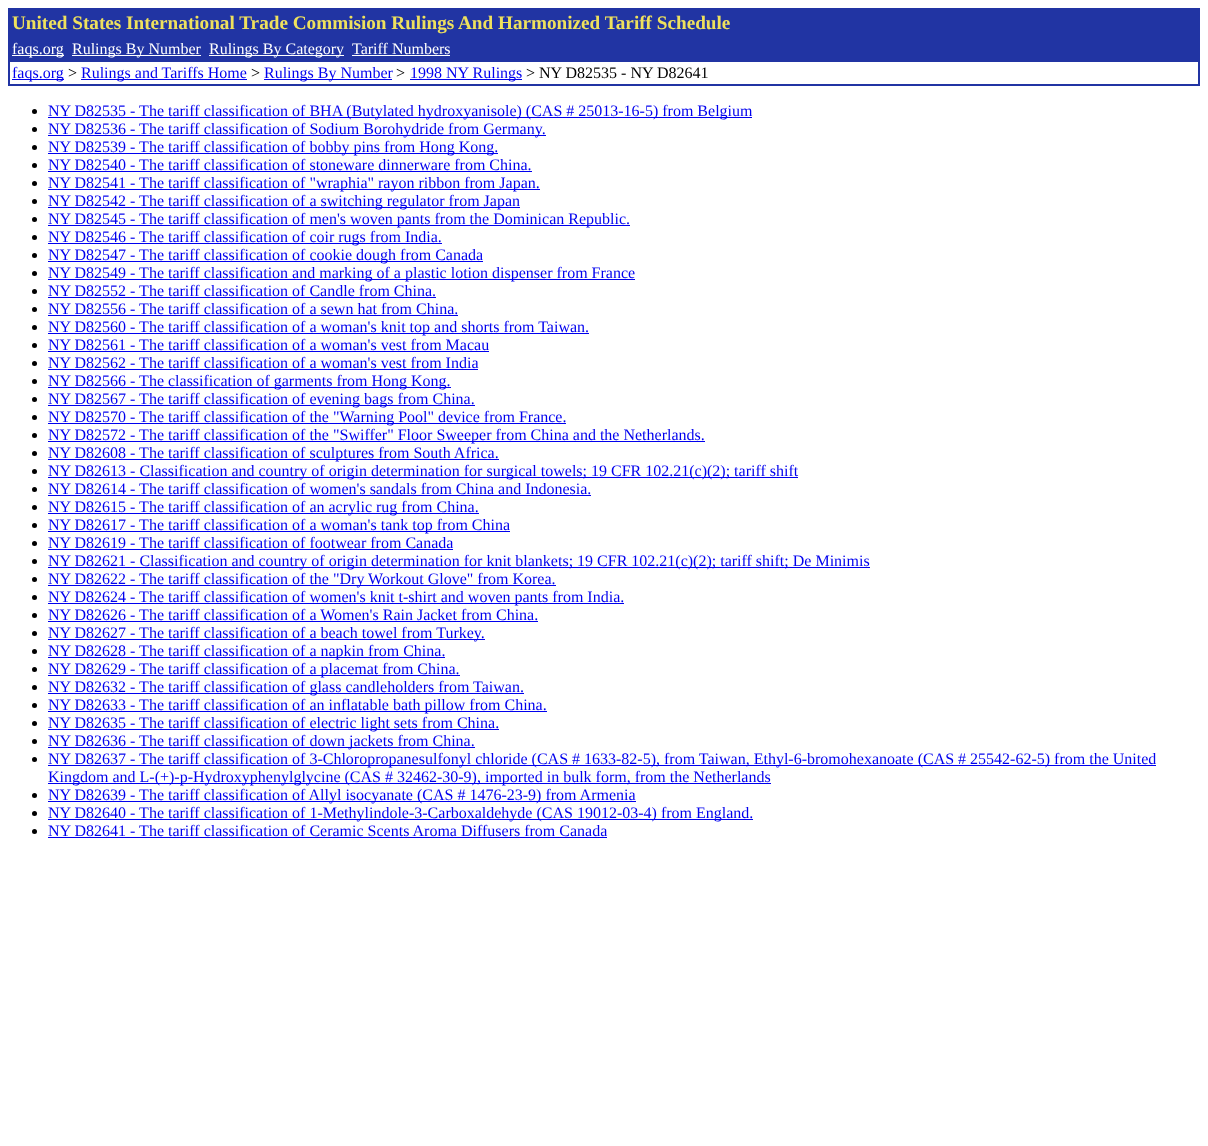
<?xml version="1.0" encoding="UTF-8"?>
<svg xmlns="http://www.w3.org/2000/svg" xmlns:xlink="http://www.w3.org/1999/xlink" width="1208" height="1146">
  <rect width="100%" height="100%" fill="#ffffff" />
  <rect x="8" y="8" width="1192" height="78" fill="#2134a3" />
  <rect x="12" y="55" width="52" height="1" fill="#ffffff" />
  <rect x="72" y="55" width="129" height="1" fill="#ffffff" />
  <rect x="209" y="55" width="135" height="1" fill="#ffffff" />
  <rect x="352" y="55" width="98" height="1" fill="#ffffff" />
  <rect x="10" y="62" width="1188" height="22" fill="#ffffff" />
  <rect x="12" y="79" width="52" height="1" fill="#0000ee" />
  <rect x="81" y="79" width="166" height="1" fill="#0000ee" />
  <rect x="264" y="79" width="128" height="1" fill="#0000ee" />
  <rect x="410" y="79" width="112" height="1" fill="#0000ee" />
  <circle cx="34.5" cy="111.5" r="2.5" fill="#000000" />
  <rect x="48" y="117" width="704" height="1" fill="#0000ee" />
  <circle cx="34.5" cy="129.5" r="2.5" fill="#000000" />
  <rect x="48" y="135" width="498" height="1" fill="#0000ee" />
  <circle cx="34.5" cy="147.5" r="2.5" fill="#000000" />
  <rect x="48" y="153" width="450" height="1" fill="#0000ee" />
  <circle cx="34.5" cy="165.5" r="2.5" fill="#000000" />
  <rect x="48" y="171" width="484" height="1" fill="#0000ee" />
  <circle cx="34.5" cy="183.5" r="2.5" fill="#000000" />
  <rect x="48" y="189" width="492" height="1" fill="#0000ee" />
  <circle cx="34.5" cy="201.5" r="2.5" fill="#000000" />
  <rect x="48" y="207" width="472" height="1" fill="#0000ee" />
  <circle cx="34.5" cy="219.5" r="2.5" fill="#000000" />
  <rect x="48" y="225" width="582" height="1" fill="#0000ee" />
  <circle cx="34.5" cy="237.5" r="2.5" fill="#000000" />
  <rect x="48" y="243" width="394" height="1" fill="#0000ee" />
  <circle cx="34.5" cy="255.5" r="2.5" fill="#000000" />
  <rect x="48" y="261" width="435" height="1" fill="#0000ee" />
  <circle cx="34.5" cy="273.5" r="2.5" fill="#000000" />
  <rect x="48" y="279" width="587" height="1" fill="#0000ee" />
  <circle cx="34.5" cy="291.5" r="2.5" fill="#000000" />
  <rect x="48" y="297" width="388" height="1" fill="#0000ee" />
  <circle cx="34.5" cy="309.5" r="2.5" fill="#000000" />
  <rect x="48" y="315" width="410" height="1" fill="#0000ee" />
  <circle cx="34.5" cy="327.5" r="2.5" fill="#000000" />
  <rect x="48" y="333" width="541" height="1" fill="#0000ee" />
  <circle cx="34.5" cy="345.5" r="2.5" fill="#000000" />
  <rect x="48" y="351" width="441" height="1" fill="#0000ee" />
  <circle cx="34.5" cy="363.5" r="2.5" fill="#000000" />
  <rect x="48" y="369" width="430" height="1" fill="#0000ee" />
  <circle cx="34.5" cy="381.5" r="2.5" fill="#000000" />
  <rect x="48" y="387" width="403" height="1" fill="#0000ee" />
  <circle cx="34.5" cy="399.5" r="2.5" fill="#000000" />
  <rect x="48" y="405" width="427" height="1" fill="#0000ee" />
  <circle cx="34.5" cy="417.5" r="2.5" fill="#000000" />
  <rect x="48" y="423" width="518" height="1" fill="#0000ee" />
  <circle cx="34.5" cy="435.5" r="2.5" fill="#000000" />
  <rect x="48" y="441" width="657" height="1" fill="#0000ee" />
  <circle cx="34.5" cy="453.5" r="2.5" fill="#000000" />
  <rect x="48" y="459" width="451" height="1" fill="#0000ee" />
  <circle cx="34.5" cy="471.5" r="2.5" fill="#000000" />
  <rect x="48" y="477" width="750" height="1" fill="#0000ee" />
  <circle cx="34.5" cy="489.5" r="2.5" fill="#000000" />
  <rect x="48" y="495" width="543" height="1" fill="#0000ee" />
  <circle cx="34.5" cy="507.5" r="2.5" fill="#000000" />
  <rect x="48" y="513" width="431" height="1" fill="#0000ee" />
  <circle cx="34.5" cy="525.5" r="2.5" fill="#000000" />
  <rect x="48" y="531" width="462" height="1" fill="#0000ee" />
  <circle cx="34.5" cy="543.5" r="2.5" fill="#000000" />
  <rect x="48" y="549" width="405" height="1" fill="#0000ee" />
  <circle cx="34.5" cy="561.5" r="2.5" fill="#000000" />
  <rect x="48" y="567" width="822" height="1" fill="#0000ee" />
  <circle cx="34.5" cy="579.5" r="2.5" fill="#000000" />
  <rect x="48" y="585" width="508" height="1" fill="#0000ee" />
  <circle cx="34.5" cy="597.5" r="2.5" fill="#000000" />
  <rect x="48" y="603" width="576" height="1" fill="#0000ee" />
  <circle cx="34.5" cy="615.5" r="2.5" fill="#000000" />
  <rect x="48" y="621" width="490" height="1" fill="#0000ee" />
  <circle cx="34.5" cy="633.5" r="2.5" fill="#000000" />
  <rect x="48" y="639" width="437" height="1" fill="#0000ee" />
  <circle cx="34.5" cy="651.5" r="2.5" fill="#000000" />
  <rect x="48" y="657" width="397" height="1" fill="#0000ee" />
  <circle cx="34.5" cy="669.5" r="2.5" fill="#000000" />
  <rect x="48" y="675" width="412" height="1" fill="#0000ee" />
  <circle cx="34.5" cy="687.5" r="2.5" fill="#000000" />
  <rect x="48" y="693" width="476" height="1" fill="#0000ee" />
  <circle cx="34.5" cy="705.5" r="2.5" fill="#000000" />
  <rect x="48" y="711" width="499" height="1" fill="#0000ee" />
  <circle cx="34.5" cy="723.5" r="2.5" fill="#000000" />
  <rect x="48" y="729" width="451" height="1" fill="#0000ee" />
  <circle cx="34.5" cy="741.5" r="2.5" fill="#000000" />
  <rect x="48" y="747" width="427" height="1" fill="#0000ee" />
  <circle cx="34.5" cy="759.5" r="2.5" fill="#000000" />
  <rect x="48" y="765" width="1108" height="1" fill="#0000ee" />
  <rect x="48" y="783" width="723" height="1" fill="#0000ee" />
  <circle cx="34.5" cy="795.5" r="2.5" fill="#000000" />
  <rect x="48" y="801" width="588" height="1" fill="#0000ee" />
  <circle cx="34.5" cy="813.5" r="2.5" fill="#000000" />
  <rect x="48" y="819" width="705" height="1" fill="#0000ee" />
  <circle cx="34.5" cy="831.5" r="2.5" fill="#000000" />
  <rect x="48" y="837" width="559" height="1" fill="#0000ee" />
  <text x="12" y="29" style="font-family: Liberation Serif; font-size: 19.2px; font-weight: bold; fill: #efe15d">United States International Trade Commision Rulings And Harmonized Tariff Schedule</text>
  <text x="12" y="54" style="font-family: Liberation Serif; font-size: 16px; fill: #ffffff">faqs.org</text>
  <text x="72" y="54" style="font-family: Liberation Serif; font-size: 16px; fill: #ffffff">Rulings By Number</text>
  <text x="209" y="54" style="font-family: Liberation Serif; font-size: 16px; fill: #ffffff">Rulings By Category</text>
  <text x="352" y="54" style="font-family: Liberation Serif; font-size: 16px; fill: #ffffff">Tariff Numbers</text>
  <text x="12" y="78" style="font-family: Liberation Serif; font-size: 16px; fill: #0000ee">faqs.org</text>
  <text x="68" y="78" style="font-family: Liberation Serif; font-size: 16px; fill: #000000">&gt;</text>
  <text x="81" y="78" style="font-family: Liberation Serif; font-size: 16px; fill: #0000ee">Rulings and Tariffs Home</text>
  <text x="251" y="78" style="font-family: Liberation Serif; font-size: 16px; fill: #000000">&gt;</text>
  <text x="264" y="78" style="font-family: Liberation Serif; font-size: 16px; fill: #0000ee">Rulings By Number</text>
  <text x="396" y="78" style="font-family: Liberation Serif; font-size: 16px; fill: #000000">&gt;</text>
  <text x="410" y="78" style="font-family: Liberation Serif; font-size: 16px; fill: #0000ee">1998 NY Rulings</text>
  <text x="526" y="78" style="font-family: Liberation Serif; font-size: 16px; fill: #000000">&gt; NY D82535 - NY D82641</text>
  <text x="48" y="116" style="font-family: Liberation Serif; font-size: 16px; fill: #0000ee">NY D82535 - The tariff classification of BHA (Butylated hydroxyanisole) (CAS # 25013-16-5) from Belgium</text>
  <text x="48" y="134" style="font-family: Liberation Serif; font-size: 16px; fill: #0000ee">NY D82536 - The tariff classification of Sodium Borohydride from Germany.</text>
  <text x="48" y="152" style="font-family: Liberation Serif; font-size: 16px; fill: #0000ee">NY D82539 - The tariff classification of bobby pins from Hong Kong.</text>
  <text x="48" y="170" style="font-family: Liberation Serif; font-size: 16px; fill: #0000ee">NY D82540 - The tariff classification of stoneware dinnerware from China.</text>
  <text x="48" y="188" style="font-family: Liberation Serif; font-size: 16px; fill: #0000ee">NY D82541 - The tariff classification of "wraphia" rayon ribbon from Japan.</text>
  <text x="48" y="206" style="font-family: Liberation Serif; font-size: 16px; fill: #0000ee">NY D82542 - The tariff classification of a switching regulator from Japan</text>
  <text x="48" y="224" style="font-family: Liberation Serif; font-size: 16px; fill: #0000ee">NY D82545 - The tariff classification of men's woven pants from the Dominican Republic.</text>
  <text x="48" y="242" style="font-family: Liberation Serif; font-size: 16px; fill: #0000ee">NY D82546 - The tariff classification of coir rugs from India.</text>
  <text x="48" y="260" style="font-family: Liberation Serif; font-size: 16px; fill: #0000ee">NY D82547 - The tariff classification of cookie dough from Canada</text>
  <text x="48" y="278" style="font-family: Liberation Serif; font-size: 16px; fill: #0000ee">NY D82549 - The tariff classification and marking of a plastic lotion dispenser from France</text>
  <text x="48" y="296" style="font-family: Liberation Serif; font-size: 16px; fill: #0000ee">NY D82552 - The tariff classification of Candle from China.</text>
  <text x="48" y="314" style="font-family: Liberation Serif; font-size: 16px; fill: #0000ee">NY D82556 - The tariff classification of a sewn hat from China.</text>
  <text x="48" y="332" style="font-family: Liberation Serif; font-size: 16px; fill: #0000ee">NY D82560 - The tariff classification of a woman's knit top and shorts from Taiwan.</text>
  <text x="48" y="350" style="font-family: Liberation Serif; font-size: 16px; fill: #0000ee">NY D82561 - The tariff classification of a woman's vest from Macau</text>
  <text x="48" y="368" style="font-family: Liberation Serif; font-size: 16px; fill: #0000ee">NY D82562 - The tariff classification of a woman's vest from India</text>
  <text x="48" y="386" style="font-family: Liberation Serif; font-size: 16px; fill: #0000ee">NY D82566 - The classification of garments from Hong Kong.</text>
  <text x="48" y="404" style="font-family: Liberation Serif; font-size: 16px; fill: #0000ee">NY D82567 - The tariff classification of evening bags from China.</text>
  <text x="48" y="422" style="font-family: Liberation Serif; font-size: 16px; fill: #0000ee">NY D82570 - The tariff classification of the "Warning Pool" device from France.</text>
  <text x="48" y="440" style="font-family: Liberation Serif; font-size: 16px; fill: #0000ee">NY D82572 - The tariff classification of the "Swiffer" Floor Sweeper from China and the Netherlands.</text>
  <text x="48" y="458" style="font-family: Liberation Serif; font-size: 16px; fill: #0000ee">NY D82608 - The tariff classification of sculptures from South Africa.</text>
  <text x="48" y="476" style="font-family: Liberation Serif; font-size: 16px; fill: #0000ee">NY D82613 - Classification and country of origin determination for surgical towels; 19 CFR 102.21(c)(2); tariff shift</text>
  <text x="48" y="494" style="font-family: Liberation Serif; font-size: 16px; fill: #0000ee">NY D82614 - The tariff classification of women's sandals from China and Indonesia.</text>
  <text x="48" y="512" style="font-family: Liberation Serif; font-size: 16px; fill: #0000ee">NY D82615 - The tariff classification of an acrylic rug from China.</text>
  <text x="48" y="530" style="font-family: Liberation Serif; font-size: 16px; fill: #0000ee">NY D82617 - The tariff classification of a woman's tank top from China</text>
  <text x="48" y="548" style="font-family: Liberation Serif; font-size: 16px; fill: #0000ee">NY D82619 - The tariff classification of footwear from Canada</text>
  <text x="48" y="566" style="font-family: Liberation Serif; font-size: 16px; fill: #0000ee">NY D82621 - Classification and country of origin determination for knit blankets; 19 CFR 102.21(c)(2); tariff shift; De Minimis</text>
  <text x="48" y="584" style="font-family: Liberation Serif; font-size: 16px; fill: #0000ee">NY D82622 - The tariff classification of the "Dry Workout Glove" from Korea.</text>
  <text x="48" y="602" style="font-family: Liberation Serif; font-size: 16px; fill: #0000ee">NY D82624 - The tariff classification of women's knit t-shirt and woven pants from India.</text>
  <text x="48" y="620" style="font-family: Liberation Serif; font-size: 16px; fill: #0000ee">NY D82626 - The tariff classification of a Women's Rain Jacket from China.</text>
  <text x="48" y="638" style="font-family: Liberation Serif; font-size: 16px; fill: #0000ee">NY D82627 - The tariff classification of a beach towel from Turkey.</text>
  <text x="48" y="656" style="font-family: Liberation Serif; font-size: 16px; fill: #0000ee">NY D82628 - The tariff classification of a napkin from China.</text>
  <text x="48" y="674" style="font-family: Liberation Serif; font-size: 16px; fill: #0000ee">NY D82629 - The tariff classification of a placemat from China.</text>
  <text x="48" y="692" style="font-family: Liberation Serif; font-size: 16px; fill: #0000ee">NY D82632 - The tariff classification of glass candleholders from Taiwan.</text>
  <text x="48" y="710" style="font-family: Liberation Serif; font-size: 16px; fill: #0000ee">NY D82633 - The tariff classification of an inflatable bath pillow from China.</text>
  <text x="48" y="728" style="font-family: Liberation Serif; font-size: 16px; fill: #0000ee">NY D82635 - The tariff classification of electric light sets from China.</text>
  <text x="48" y="746" style="font-family: Liberation Serif; font-size: 16px; fill: #0000ee">NY D82636 - The tariff classification of down jackets from China.</text>
  <text x="48" y="764" style="font-family: Liberation Serif; font-size: 16px; fill: #0000ee">NY D82637 - The tariff classification of 3-Chloropropanesulfonyl chloride (CAS # 1633-82-5), from Taiwan, Ethyl-6-bromohexanoate (CAS # 25542-62-5) from the United</text>
  <text x="48" y="782" style="font-family: Liberation Serif; font-size: 16px; fill: #0000ee">Kingdom and L-(+)-p-Hydroxyphenylglycine (CAS # 32462-30-9), imported in bulk form, from the Netherlands</text>
  <text x="48" y="800" style="font-family: Liberation Serif; font-size: 16px; fill: #0000ee">NY D82639 - The tariff classification of Allyl isocyanate (CAS # 1476-23-9) from Armenia</text>
  <text x="48" y="818" style="font-family: Liberation Serif; font-size: 16px; fill: #0000ee">NY D82640 - The tariff classification of 1-Methylindole-3-Carboxaldehyde (CAS 19012-03-4) from England.</text>
  <text x="48" y="836" style="font-family: Liberation Serif; font-size: 16px; fill: #0000ee">NY D82641 - The tariff classification of Ceramic Scents Aroma Diffusers from Canada</text>
</svg>
